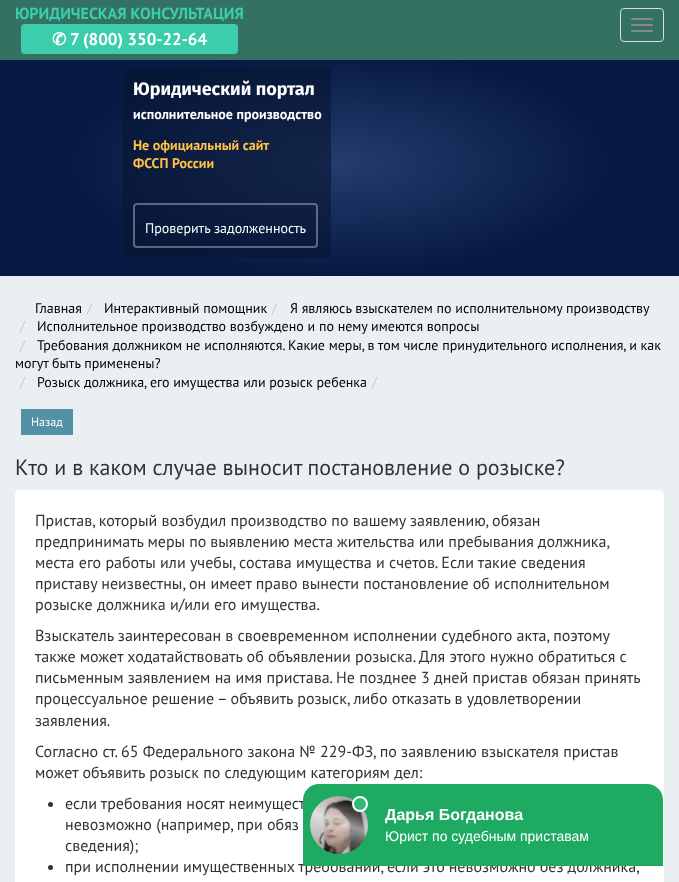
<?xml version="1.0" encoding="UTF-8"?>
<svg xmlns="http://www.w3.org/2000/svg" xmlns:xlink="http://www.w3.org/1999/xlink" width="679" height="882">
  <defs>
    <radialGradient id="g1" gradientUnits="userSpaceOnUse" cx="0" cy="0" r="1" gradientTransform="matrix(272 0 0 113 340 163)"><stop offset="0" stop-color="#243d6e" /><stop offset="1" stop-color="#061942" /></radialGradient>
    <linearGradient id="g2" gradientUnits="userSpaceOnUse" x1="349" y1="801" x2="329" y2="856"><stop offset="0" stop-color="#ffffff" stop-opacity="0" /><stop offset="0.4" stop-color="#ffffff" stop-opacity="0.6" /><stop offset="0.6" stop-color="#ffffff" stop-opacity="0.36" /><stop offset="1" stop-color="#ffffff" stop-opacity="0" /></linearGradient>
  </defs>
  <rect width="100%" height="100%" fill="#eaf0f1" />
  <rect width="679" height="60" fill="#337262" />
  <rect x="21" y="24" width="217" height="30" rx="4" fill="#3cceac" />
  <rect x="620.5" y="8.5" width="43" height="33" rx="3.5" fill="none" stroke="#dddddd" />
  <rect x="631" y="18" width="22" height="2" rx="1" fill="#888888" />
  <rect x="631" y="24" width="22" height="2" rx="1" fill="#888888" />
  <rect x="631" y="30" width="22" height="2" rx="1" fill="#888888" />
  <rect y="60" width="679" height="216" fill="url(#g1)" />
  <rect x="123" y="68" width="208" height="190" rx="5" fill="#081632" fill-opacity="0.6" />
  <rect x="134" y="204" width="183" height="43" rx="3" fill="none" stroke="#ffffff" stroke-opacity="0.34" stroke-width="2" />
  <rect x="21" y="409" width="52" height="26" fill="#5491a4" />
  <rect x="15" y="490" width="649" height="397" rx="5" fill="#ffffff" />
  <circle cx="50.5" cy="804.5" r="2.5" fill="#333333" />
  <circle cx="50.5" cy="867.5" r="2.5" fill="#333333" />
  <text x="15" y="19" style="font-family: PT Sans; font-size: 16px; font-weight: bold; fill: #3cceac">ЮРИДИЧЕСКАЯ КОНСУЛЬТАЦИЯ</text>
  <text x="52" y="45" style="font-family: DejaVu Sans; font-size: 17px; font-weight: bold; fill: #ffffff">✆</text>
  <text x="70" y="45" style="font-family: PT Sans; font-size: 17px; font-weight: bold; fill: #ffffff">7 (800) 350-22-64</text>
  <text x="133" y="95" style="font-family: Fira Sans; font-size: 18px; font-weight: bold; fill: #ffffff">Юридический портал</text>
  <text x="133" y="119" style="font-family: PT Sans; font-size: 14px; font-weight: bold; fill: #ffffff">исполнительное производство</text>
  <text x="133" y="150" style="font-family: PT Sans; font-size: 14px; font-weight: bold; fill: #ffc146">Не официальный сайт</text>
  <text x="133" y="168" style="font-family: PT Sans; font-size: 14px; font-weight: bold; fill: #ffc146">ФССП России</text>
  <text x="145" y="233" style="font-family: PT Sans; font-size: 14px; fill: #ffffff">Проверить задолженность</text>
  <text x="35" y="313" style="font-family: PT Sans; font-size: 14px; fill: #000000">Главная</text>
  <text x="87" y="313" style="font-family: PT Sans; font-size: 14px; fill: #cccccc">/</text>
  <text x="104" y="313" style="font-family: PT Sans; font-size: 14px; fill: #000000">Интерактивный помощник</text>
  <text x="272" y="313" style="font-family: PT Sans; font-size: 14px; fill: #cccccc">/</text>
  <text x="290" y="313" style="font-family: PT Sans; font-size: 14px; fill: #000000">Я являюсь взыскателем по исполнительному производству</text>
  <text x="20" y="331" style="font-family: PT Sans; font-size: 14px; fill: #cccccc">/</text>
  <text x="37" y="331" style="font-family: PT Sans; font-size: 14px; fill: #000000">Исполнительное производство возбуждено и по нему имеются вопросы</text>
  <text x="20" y="350" style="font-family: PT Sans; font-size: 14px; fill: #cccccc">/</text>
  <text x="37" y="350" style="font-family: PT Sans; font-size: 14px; fill: #000000">Требования должником не исполняются. Какие меры, в том числе принудительного исполнения, и как</text>
  <text x="15" y="368" style="font-family: PT Sans; font-size: 14px; fill: #000000">могут быть применены?</text>
  <text x="20" y="387" style="font-family: PT Sans; font-size: 14px; fill: #cccccc">/</text>
  <text x="37" y="387" style="font-family: PT Sans; font-size: 14px; fill: #000000">Розыск должника, его имущества или розыск ребенка</text>
  <text x="372" y="387" style="font-family: PT Sans; font-size: 14px; fill: #cccccc">/</text>
  <text x="31" y="426" style="font-family: PT Sans; font-size: 12px; fill: #ffffff">Назад</text>
  <text x="15" y="475" style="font-family: PT Sans; font-size: 22px; fill: #333333">Кто и в каком случае выносит постановление о розыске?</text>
  <text x="35" y="526" style="font-family: PT Sans; font-size: 16px; fill: #333333">Пристав, который возбудил производство по вашему заявлению, обязан</text>
  <text x="35" y="547" word-spacing="-0.25" style="font-family: PT Sans; font-size: 16px; fill: #333333">предпринимать меры по выявлению места жительства или пребывания должника,</text>
  <text x="35" y="568" style="font-family: PT Sans; font-size: 16px; fill: #333333">места его работы или учебы, состава имущества и счетов. Если такие сведения</text>
  <text x="35" y="589" style="font-family: PT Sans; font-size: 16px; fill: #333333">приставу неизвестны, он имеет право вынести постановление об исполнительном</text>
  <text x="35" y="610" style="font-family: PT Sans; font-size: 16px; fill: #333333">розыске должника и/или его имущества.</text>
  <text x="35" y="641" style="font-family: PT Sans; font-size: 16px; fill: #333333">Взыскатель заинтересован в своевременном исполнении судебного акта, поэтому</text>
  <text x="35" y="662" style="font-family: PT Sans; font-size: 16px; fill: #333333">также может ходатайствовать об объявлении розыска. Для этого нужно обратиться с</text>
  <text x="35" y="683" style="font-family: PT Sans; font-size: 16px; fill: #333333">письменным заявлением на имя пристава. Не позднее 3 дней пристав обязан принять</text>
  <text x="35" y="704" style="font-family: PT Sans; font-size: 16px; fill: #333333">процессуальное решение – объявить розыск, либо отказать в удовлетворении</text>
  <text x="35" y="726" style="font-family: PT Sans; font-size: 16px; fill: #333333">заявления.</text>
  <text x="35" y="757" style="font-family: PT Sans; font-size: 16px; fill: #333333">Согласно ст. 65 Федерального закона № 229-ФЗ, по заявлению взыскателя пристав</text>
  <text x="35" y="778" style="font-family: PT Sans; font-size: 16px; fill: #333333">может объявить розыск по следующим категориям дел:</text>
  <text x="65" y="809" style="font-family: PT Sans; font-size: 16px; fill: #333333">если требования носят неимущест</text>
  <text x="65" y="830" style="font-family: PT Sans; font-size: 16px; fill: #333333">невозможно (например, при обяз</text>
  <text x="65" y="851" style="font-family: PT Sans; font-size: 16px; fill: #333333">сведения);</text>
  <text x="65" y="872" word-spacing="-0.25" style="font-family: PT Sans; font-size: 16px; fill: #333333">при исполнении имущественных требований, если это невозможно без должника,</text>
  <path d="M 319 784 h 328 c 9 0 16 7 16 16 v 66 h -360 v -66 c 0 -9 7 -16 16 -16 z" fill="#1eaa61" />
  <circle cx="339" cy="825" r="29" fill="#178049" />
  <image x="310" y="796" width="58" height="58" xlink:href="image1.png" />
  <path d="M 336 796 l 24 9 c 5 5 8 12 8 20 c 0 16 -13 29 -29 29 c -16 0 -29 -13 -29 -29 c 0 -15 11 -27 26 -29 z" fill="url(#g2)" />
  <circle cx="360" cy="804" r="7" fill="#31b978" stroke="#ffffff" stroke-width="2" />
  <text x="385" y="820" style="font-family: Liberation Sans; font-size: 16px; font-weight: bold; fill: #ffffff">Дарья Богданова</text>
  <text x="385" y="841" style="font-family: Liberation Sans; font-size: 14px; fill: #ffffff">Юрист по судебным приставам</text>
</svg>
